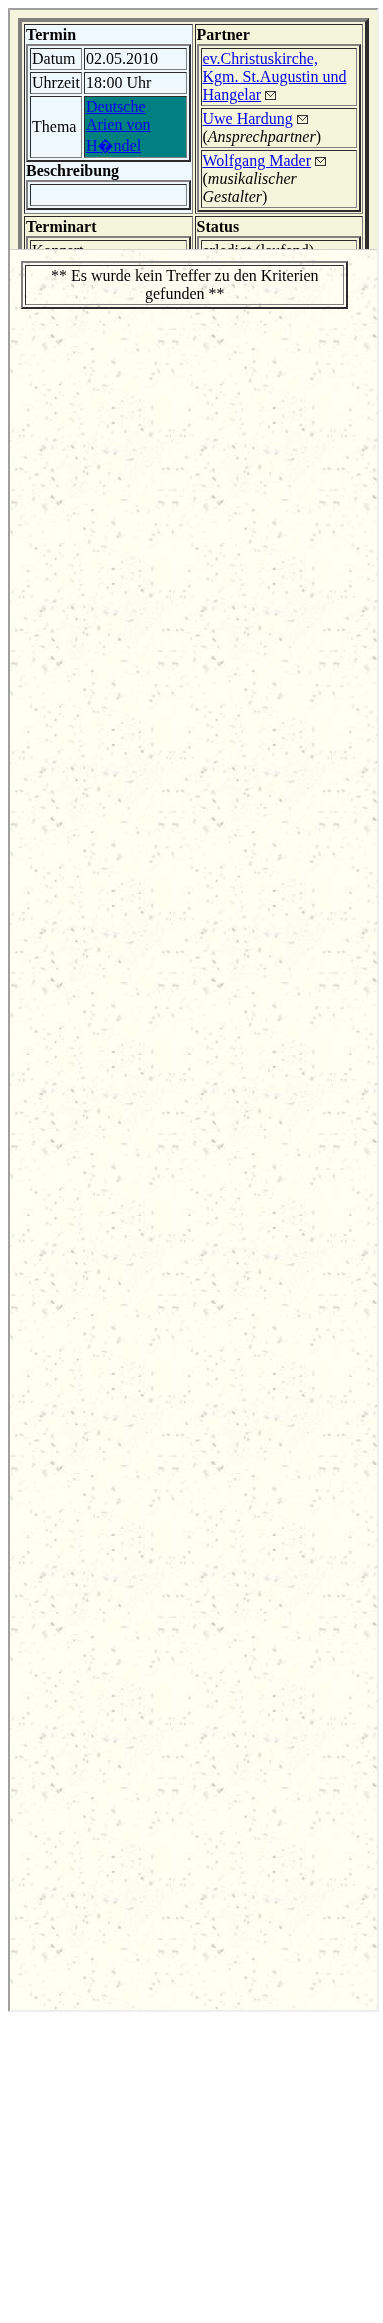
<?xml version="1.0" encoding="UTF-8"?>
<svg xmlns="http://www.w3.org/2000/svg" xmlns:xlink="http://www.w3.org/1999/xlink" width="383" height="2323">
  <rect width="100%" height="100%" fill="#ffffff" />
  <path d="M 8 8 h 371 l -2 2 h -367 z" fill="#9f9f9f" />
  <path d="M 379 8 v 2004 l -2 -2 v -2000 z" fill="#eeeeee" />
  <path d="M 379 2012 h -371 l 2 -2 h 367 z" fill="#eeeeee" />
  <path d="M 8 2012 v -2004 l 2 2 v 2000 z" fill="#9f9f9f" />
  <image x="10" y="10" width="367" height="2000" xlink:href="image1.png" />
</svg>
